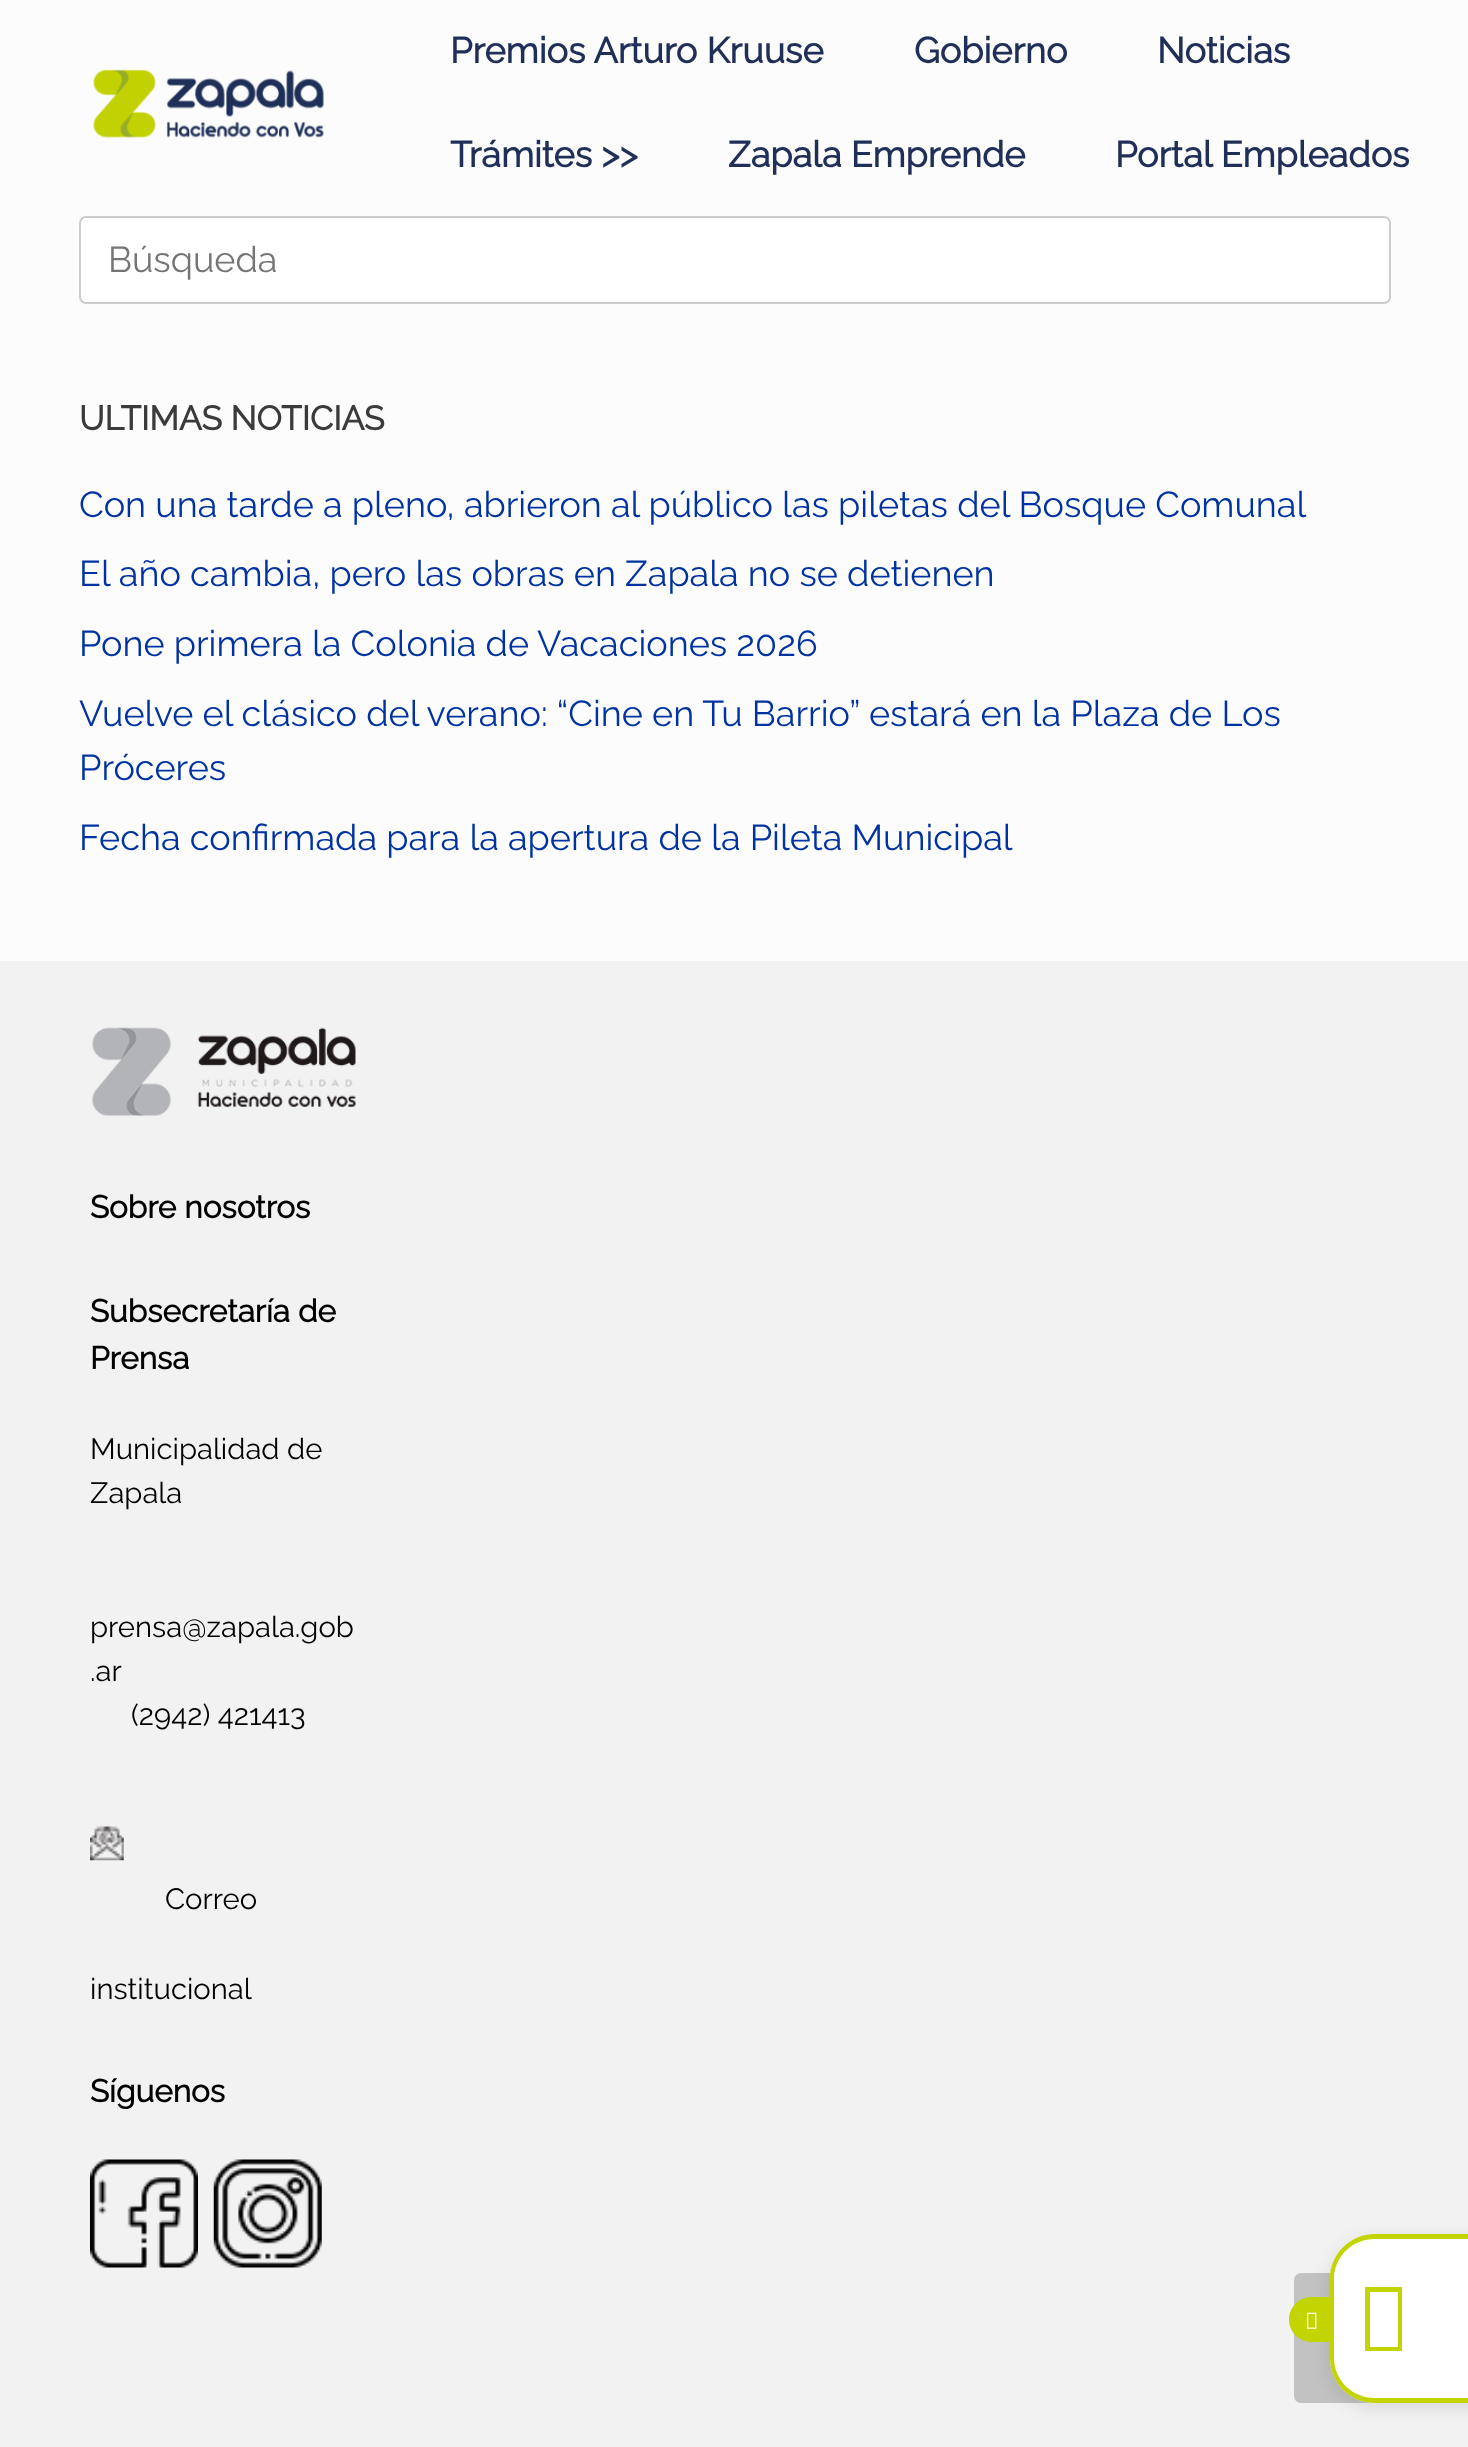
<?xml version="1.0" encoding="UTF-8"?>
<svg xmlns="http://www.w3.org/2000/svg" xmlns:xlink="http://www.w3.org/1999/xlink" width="1468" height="2447">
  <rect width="100%" height="100%" fill="#fcfcfc" />
  <image x="93" y="69" width="231" height="69" xlink:href="image1.png" />
  <rect x="80" y="217" width="1310" height="86" rx="6" fill="#ffffff" stroke="#cccccc" stroke-width="2" />
  <rect y="961" width="1468" height="1486" fill="#f2f2f2" />
  <image x="92" y="1027" width="264" height="89" xlink:href="image2.png" />
  <image x="90" y="1826" width="34" height="35" xlink:href="image3.png" />
  <image x="90" y="2159" width="108" height="109" xlink:href="image4.png" />
  <image x="213" y="2159" width="109" height="109" xlink:href="image5.png" />
  <rect x="1294" y="2273" width="130" height="130" rx="7" fill="#c2c2c2" />
  <rect x="1330" y="2239" width="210" height="169" rx="45" fill="#000000" fill-opacity="0.1" filter="blur(9px)" />
  <path d="M 1375 2234 h 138 v 169 h -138 c -25 0 -45 -20 -45 -45 v -79 c 0 -25 20 -45 45 -45 z" fill="#ffffff" />
  <path d="M 1375 2234 h 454 v 169 h -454 c -25 0 -45 -20 -45 -45 v -79 c 0 -25 20 -45 45 -45 z m 0 5 h 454 v 159 h -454 c -23 0 -41 -18 -41 -40 v -79 c 0 -22 18 -40 41 -40 z" fill="#c2d500" fill-rule="evenodd" />
  <path d="M 1311.5 2297 h 15.5 c 4 0 7 3 7 7 v 31 c 0 4 -3 7 -7 7 h -15.5 c -12.5 0 -22.5 -10 -22.5 -22.5 c 0 -12.5 10 -22.5 22.5 -22.5 z" fill="#c2d500" />
  <image x="1307" y="2312" width="10" height="17" xlink:href="image6.png" />
  <path d="M 1365 2351 v -64 h 37 v 64 z m 5 -4 h 28 v -55 h -28 z" fill="#c2d500" />
  <text x="450" y="63" style="font-family: Raleway; font-size: 36px; font-weight: bold; fill: #1f2f58">Premios Arturo Kruuse</text>
  <text x="914" y="63" style="font-family: Raleway; font-size: 36px; font-weight: bold; fill: #1f2f58">Gobierno</text>
  <text x="1157" y="63" style="font-family: Raleway; font-size: 36px; font-weight: bold; fill: #1f2f58">Noticias</text>
  <text x="450" y="167" style="font-family: Raleway; font-size: 36px; font-weight: bold; fill: #1f2f58">Trámites &gt;&gt;</text>
  <text x="728" y="167" style="font-family: Raleway; font-size: 36px; font-weight: bold; fill: #1f2f58">Zapala Emprende</text>
  <text x="1115" y="167" style="font-family: Raleway; font-size: 36px; font-weight: bold; fill: #1f2f58">Portal Empleados</text>
  <text x="108" y="272" style="font-family: Raleway; font-size: 36px; fill: #757575">Búsqueda</text>
  <text x="79" y="430" style="font-family: Raleway; font-size: 33.75px; font-weight: bold; fill: #3b3b3b">ULTIMAS NOTICIAS</text>
  <text x="79" y="517" style="font-family: Raleway; font-size: 36px; fill: #0033a1">Con una tarde a pleno, abrieron al público las piletas del Bosque Comunal</text>
  <text x="79" y="586" style="font-family: Raleway; font-size: 36px; fill: #0033a1">El año cambia, pero las obras en Zapala no se detienen</text>
  <text x="79" y="656" style="font-family: Raleway; font-size: 36px; fill: #0033a1">Pone primera la Colonia de Vacaciones 2026</text>
  <text x="79" y="726" style="font-family: Raleway; font-size: 36px; fill: #0033a1">Vuelve el clásico del verano: “Cine en Tu Barrio” estará en la Plaza de Los</text>
  <text x="79" y="780" style="font-family: Raleway; font-size: 36px; fill: #0033a1">Próceres</text>
  <text x="79" y="850" style="font-family: Raleway; font-size: 36px; fill: #0033a1">Fecha confirmada para la apertura de la Pileta Municipal</text>
  <text x="90" y="1218" style="font-family: Raleway; font-size: 31.5px; font-weight: bold; fill: #000000">Sobre nosotros</text>
  <text x="90" y="1322" style="font-family: Raleway; font-size: 31.5px; font-weight: bold; fill: #000000">Subsecretaría de</text>
  <text x="90" y="1369" style="font-family: Raleway; font-size: 31.5px; font-weight: bold; fill: #000000">Prensa</text>
  <text x="90" y="1459" style="font-family: Raleway; font-size: 29.25px; fill: #000000">Municipalidad de</text>
  <text x="90" y="1503" style="font-family: Raleway; font-size: 29.25px; fill: #000000">Zapala</text>
  <text x="90" y="1637" style="font-family: Raleway; font-size: 29.25px; fill: #000000">prensa@zapala.gob</text>
  <text x="90" y="1681" style="font-family: Raleway; font-size: 29.25px; fill: #000000">.ar</text>
  <text x="131" y="1725" style="font-family: Raleway; font-size: 29.25px; fill: #000000">(2942) 421413</text>
  <text x="165" y="1909" style="font-family: Raleway; font-size: 29.25px; fill: #000000">Correo</text>
  <text x="90" y="1999" style="font-family: Raleway; font-size: 29.25px; fill: #000000">institucional</text>
  <text x="90" y="2102" style="font-family: Raleway; font-size: 31.5px; font-weight: bold; fill: #000000">Síguenos</text>
</svg>
